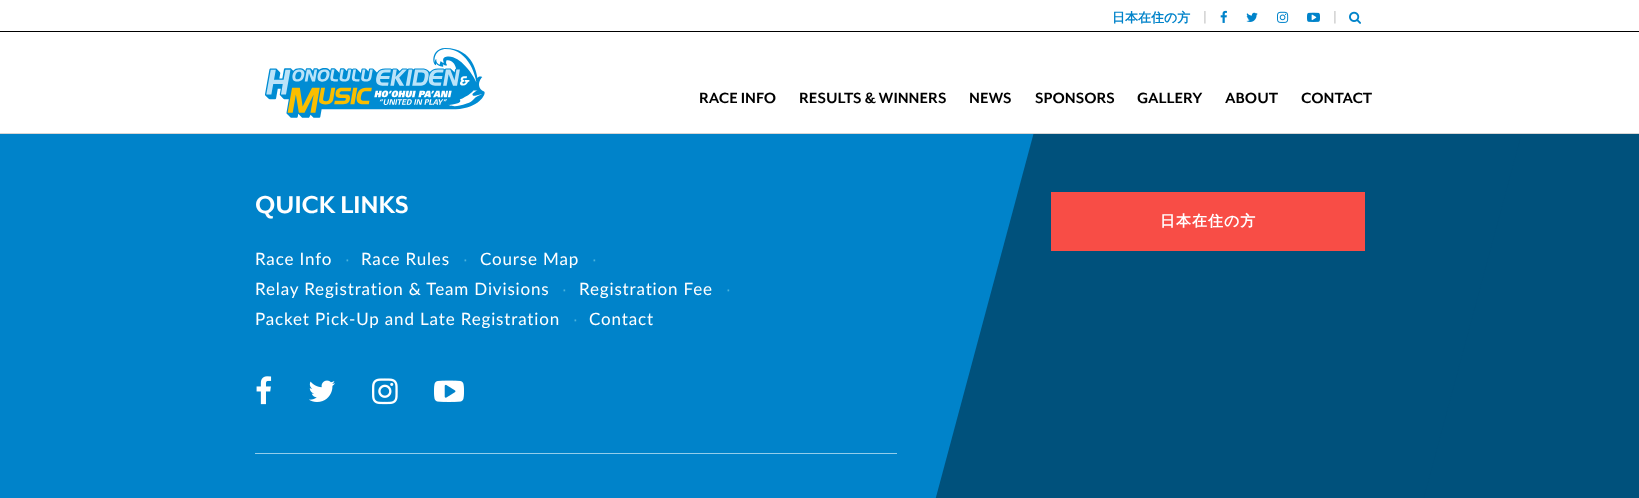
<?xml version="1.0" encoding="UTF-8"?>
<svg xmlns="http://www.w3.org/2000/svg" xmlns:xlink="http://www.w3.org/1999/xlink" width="1639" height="498">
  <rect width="100%" height="100%" fill="#0083ca" />
  <rect x="1423" y="134" width="216" height="364" fill="#00517c" />
  <path d="M 1034 132 h 488 l -128 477 h -488 z" fill="#00517c" />
  <rect width="1639" height="133" fill="#ffffff" />
  <rect y="31" width="1639" height="1" fill="#000000" />
  <image x="1220" y="10" width="7" height="13" xlink:href="image1.png" />
  <image x="1246" y="12" width="12" height="10" xlink:href="image2.png" />
  <image x="1277" y="11" width="12" height="12" xlink:href="image3.png" />
  <image x="1307" y="12" width="13" height="10" xlink:href="image4.png" />
  <image x="1349" y="11" width="12" height="13" xlink:href="image5.png" />
  <rect y="133" width="1639" height="1" fill="#d6d6d6" />
  <image x="265" y="48" width="220" height="70" xlink:href="image6.png" />
  <image x="256" y="376" width="16" height="29" xlink:href="image7.png" />
  <image x="309" y="380" width="26" height="22" xlink:href="image8.png" />
  <image x="372" y="378" width="26" height="27" xlink:href="image9.png" />
  <image x="434" y="380" width="30" height="22" xlink:href="image10.png" />
  <rect x="255" y="453" width="642" height="1" fill="#93cdea" />
  <rect x="1051" y="192" width="314" height="59" fill="#f84d46" />
  <text x="1112" y="22" style="font-family: WenQuanYi Zen Hei; font-size: 13px; font-weight: bold; fill: #0083ca">日本在住の方</text>
  <text x="1203" y="22" style="font-family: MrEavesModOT; font-size: 16px; font-weight: bold; fill: #b4b4b4">|</text>
  <text x="1333" y="22" style="font-family: MrEavesModOT; font-size: 16px; font-weight: bold; fill: #b4b4b4">|</text>
  <text x="699" y="103" style="font-family: MrEavesModOT; font-size: 17px; font-weight: bold; fill: #000000">RACE INFO</text>
  <text x="799" y="103" style="font-family: MrEavesModOT; font-size: 17px; font-weight: bold; fill: #000000">RESULTS &amp; WINNERS</text>
  <text x="969" y="103" style="font-family: MrEavesModOT; font-size: 17px; font-weight: bold; fill: #000000">NEWS</text>
  <text x="1035" y="103" style="font-family: MrEavesModOT; font-size: 17px; font-weight: bold; fill: #000000">SPONSORS</text>
  <text x="1137" y="103" style="font-family: MrEavesModOT; font-size: 17px; font-weight: bold; fill: #000000">GALLERY</text>
  <text x="1225" y="103" style="font-family: MrEavesModOT; font-size: 17px; font-weight: bold; fill: #000000">ABOUT</text>
  <text x="1301" y="103" style="font-family: MrEavesModOT; font-size: 17px; font-weight: bold; fill: #000000">CONTACT</text>
  <text x="255" y="213" style="font-family: MrEavesModOT; font-size: 28px; font-weight: bold; fill: #ffffff">QUICK LINKS</text>
  <text x="255" y="265" style="font-family: Lato; font-size: 17px; letter-spacing: 0.85px; fill: #ffffff">Race Info</text>
  <text x="345" y="265" style="font-family: Liberation Sans; font-size: 17px; letter-spacing: 0.85px; fill: #4cb4de">∙</text>
  <text x="361" y="265" style="font-family: Lato; font-size: 17px; letter-spacing: 0.85px; fill: #ffffff">Race Rules</text>
  <text x="463" y="265" style="font-family: Liberation Sans; font-size: 17px; letter-spacing: 0.85px; fill: #4cb4de">∙</text>
  <text x="480" y="265" style="font-family: Lato; font-size: 17px; letter-spacing: 0.85px; fill: #ffffff">Course Map</text>
  <text x="592" y="265" style="font-family: Liberation Sans; font-size: 17px; letter-spacing: 0.85px; fill: #4cb4de">∙</text>
  <text x="255" y="295" style="font-family: Lato; font-size: 17px; letter-spacing: 0.85px; fill: #ffffff">Relay Registration &amp; Team Divisions</text>
  <text x="562" y="295" style="font-family: Liberation Sans; font-size: 17px; letter-spacing: 0.85px; fill: #4cb4de">∙</text>
  <text x="579" y="295" style="font-family: Lato; font-size: 17px; letter-spacing: 0.85px; fill: #ffffff">Registration Fee</text>
  <text x="726" y="295" style="font-family: Liberation Sans; font-size: 17px; letter-spacing: 0.85px; fill: #4cb4de">∙</text>
  <text x="255" y="325" style="font-family: Lato; font-size: 17px; letter-spacing: 0.85px; fill: #ffffff">Packet Pick-Up and Late Registration</text>
  <text x="573" y="325" style="font-family: Liberation Sans; font-size: 17px; letter-spacing: 0.85px; fill: #4cb4de">∙</text>
  <text x="589" y="325" style="font-family: Lato; font-size: 17px; letter-spacing: 0.85px; fill: #ffffff">Contact</text>
  <text x="1160" y="226" style="font-family: WenQuanYi Zen Hei; font-size: 15px; font-weight: bold; letter-spacing: 1px; fill: #ffffff">日本在住の方</text>
</svg>
